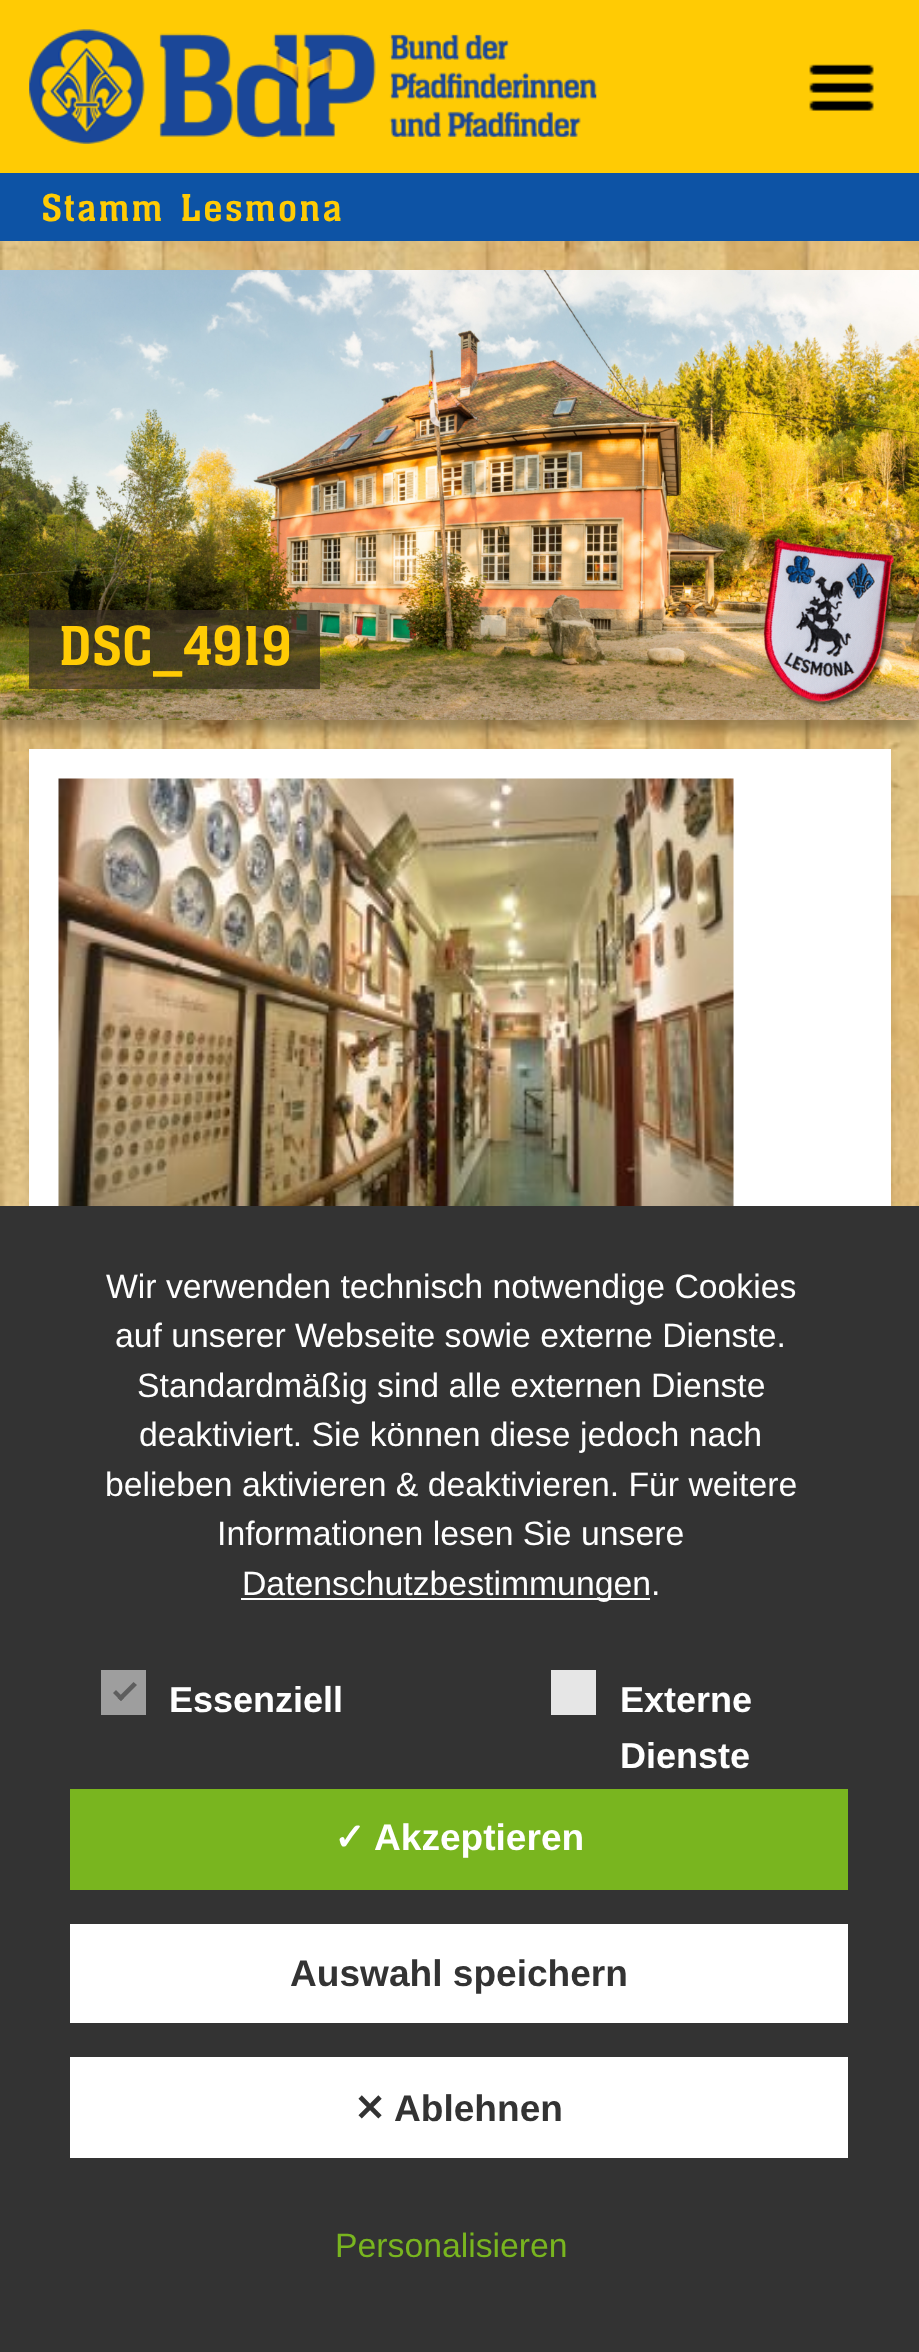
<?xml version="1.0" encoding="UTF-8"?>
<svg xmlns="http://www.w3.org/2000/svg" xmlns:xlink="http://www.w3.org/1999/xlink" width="919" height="2352">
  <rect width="100%" height="100%" fill="#ffffff" />
  <image x="0" y="241" width="919" height="965" xlink:href="image1.png" />
  <rect width="919" height="173" fill="#ffcb04" />
  <image x="809" y="64" width="65" height="47" xlink:href="image2.png" />
  <image x="29" y="29" width="568" height="115" xlink:href="image3.png" />
  <rect y="173" width="919" height="68" fill="#0d53a5" />
  <rect y="281" width="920" height="450" fill="#000000" fill-opacity="0.3" filter="blur(5.5px)" />
  <image x="0" y="270" width="919" height="450" xlink:href="image4.png" />
  <rect x="29" y="610" width="291" height="79" fill="#382e23" fill-opacity="0.7" />
  <rect x="29" y="761" width="862" height="510" fill="#000000" fill-opacity="0.1" filter="blur(5.5px)" />
  <rect x="29" y="749" width="862" height="457" fill="#ffffff" />
  <image x="58" y="778" width="676" height="428" xlink:href="image5.png" />
  <rect y="1206" width="919" height="1146" fill="#333333" />
  <rect x="241" y="1598" width="409" height="2" fill="#ffffff" />
  <rect x="101" y="1670" width="45" height="45" fill="#9e9e9e" />
  <path d="M 133.5 1682 l 3.5 3 l -16 16 l -3.5 -3 z" fill="#5e5e5e" />
  <path d="M 116 1690 l 8 8 l -3 3 l -8 -8 z" fill="#5e5e5e" />
  <rect x="551" y="1670" width="45" height="45" fill="#e6e6e6" />
  <rect x="70" y="1789" width="778" height="101" fill="#79b51f" />
  <rect x="70" y="1924" width="778" height="99" fill="#ffffff" />
  <rect x="70" y="2057" width="778" height="101" fill="#ffffff" />
  <text x="41" y="221" word-spacing="4" style="font-family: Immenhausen; font-size: 40.5px; letter-spacing: 2.25px; fill: #ffcb04">Stamm Lesmona</text>
  <text x="59" y="665" style="font-family: Immenhausen; font-size: 58.5px; fill: #ffcb04">DSC_4919</text>
  <text x="106" y="1298" style="font-family: Liberation Sans; font-size: 33.75px; fill: #ffffff">Wir verwenden technisch notwendige Cookies</text>
  <text x="115" y="1347" style="font-family: Liberation Sans; font-size: 33.75px; fill: #ffffff">auf unserer Webseite sowie externe Dienste.</text>
  <text x="137" y="1397" style="font-family: Liberation Sans; font-size: 33.75px; fill: #ffffff">Standardmäßig sind alle externen Dienste</text>
  <text x="139" y="1446" style="font-family: Liberation Sans; font-size: 33.75px; fill: #ffffff">deaktiviert. Sie können diese jedoch nach</text>
  <text x="105" y="1496" style="font-family: Liberation Sans; font-size: 33.75px; fill: #ffffff">belieben aktivieren &amp; deaktivieren. Für weitere</text>
  <text x="217" y="1545" style="font-family: Liberation Sans; font-size: 33.75px; fill: #ffffff">Informationen lesen Sie unsere</text>
  <text x="242" y="1595" style="font-family: Liberation Sans; font-size: 33.75px; fill: #ffffff">Datenschutzbestimmungen.</text>
  <text x="169" y="1712" style="font-family: Liberation Sans; font-size: 36px; font-weight: bold; fill: #ffffff">Essenziell</text>
  <text x="620" y="1712" style="font-family: Liberation Sans; font-size: 36px; font-weight: bold; fill: #ffffff">Externe</text>
  <text x="620" y="1768" style="font-family: Liberation Sans; font-size: 36px; font-weight: bold; fill: #ffffff">Dienste</text>
  <text x="334" y="1850" style="font-family: DejaVu Sans; font-size: 37.1px; font-weight: bold; fill: #ffffff">✓</text>
  <text x="374" y="1850" style="font-family: Liberation Sans; font-size: 37.1px; font-weight: bold; fill: #ffffff">Akzeptieren</text>
  <text x="290" y="1986" style="font-family: Liberation Sans; font-size: 37.1px; font-weight: bold; fill: #333333">Auswahl speichern</text>
  <text x="354" y="2121" style="font-family: DejaVu Sans; font-size: 37.1px; font-weight: bold; fill: #333333">✕</text>
  <text x="394" y="2121" style="font-family: Liberation Sans; font-size: 37.1px; font-weight: bold; fill: #333333">Ablehnen</text>
  <text x="335" y="2257" style="font-family: Liberation Sans; font-size: 33.75px; fill: #79b51f">Personalisieren</text>
</svg>
